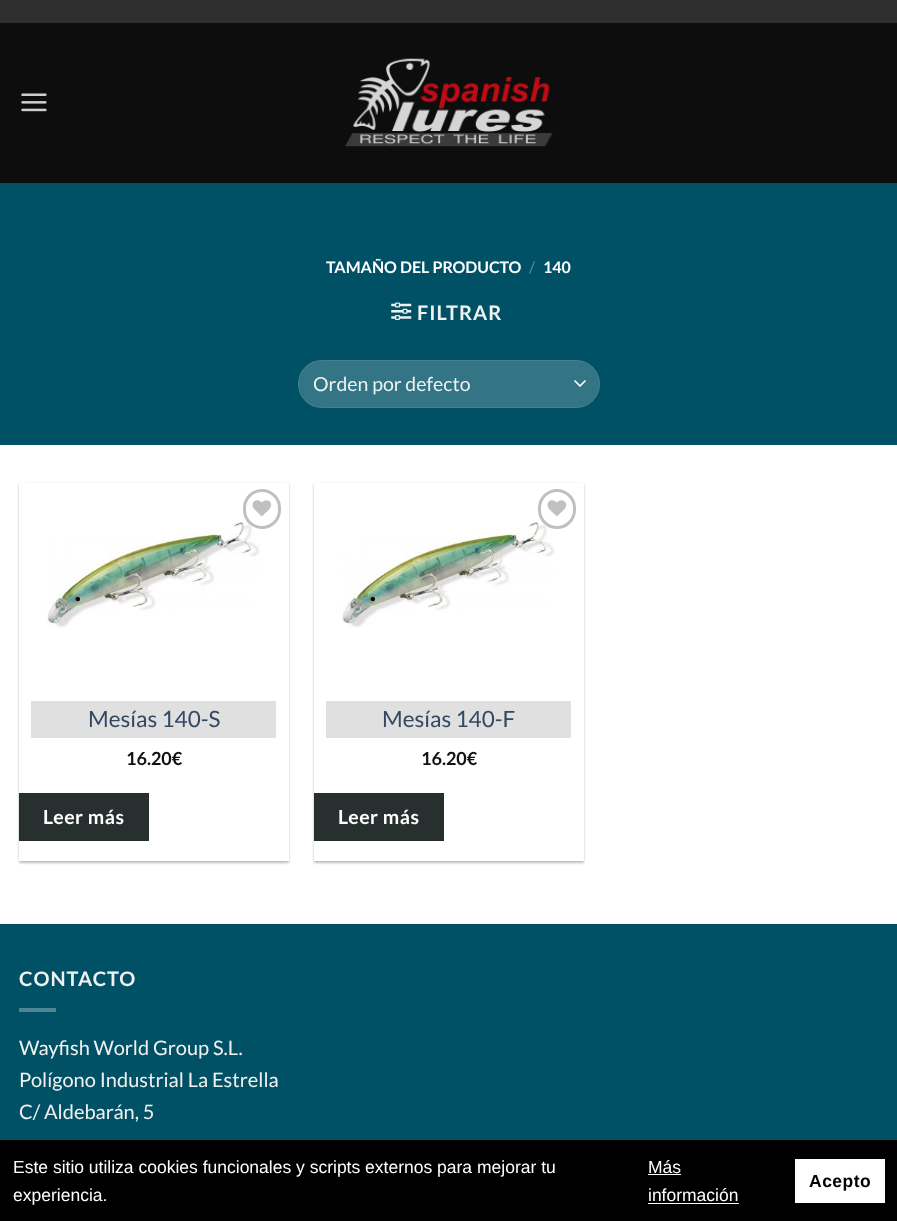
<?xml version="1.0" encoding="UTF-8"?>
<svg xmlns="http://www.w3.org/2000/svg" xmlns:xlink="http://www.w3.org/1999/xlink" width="897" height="1221">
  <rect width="100%" height="100%" fill="#ffffff" />
  <rect width="897" height="23" fill="#2f2f2f" />
  <rect y="23" width="897" height="160" fill="#0d0d0d" />
  <image x="21" y="93" width="26" height="19" xlink:href="image1.png" />
  <image x="345" y="58" width="208" height="89" xlink:href="image2.png" />
  <rect y="183" width="897" height="262" fill="#005166" />
  <image x="391" y="302" width="21" height="18" xlink:href="image3.png" />
  <rect x="298" y="360" width="302" height="48" rx="24" fill="#337485" />
  <path d="M 575 381 l 5 5 l 5 -5" fill="none" stroke="#ffffff" stroke-width="1.7" stroke-linecap="round" stroke-linejoin="round" />
  <rect x="298.5" y="360.5" width="301" height="47" rx="23.5" fill="none" stroke="#ffffff" stroke-opacity="0.09" />
  <rect x="19" y="484" width="270" height="379" fill="#000000" fill-opacity="0.24" filter="blur(1px)" />
  <rect x="21" y="486" width="265" height="374" fill="#000000" fill-opacity="0.12" filter="blur(2px)" />
  <rect x="19" y="483" width="270" height="378" fill="#ffffff" />
  <image x="47" y="522" width="213" height="106" xlink:href="image5.png" />
  <rect x="244.5" y="490.5" width="35" height="37" rx="17.5" fill="none" stroke="#c0c0c0" stroke-width="3" />
  <image x="252" y="500" width="20" height="17" xlink:href="image4.png" />
  <rect x="31" y="701" width="245" height="37" fill="#e0e0e0" />
  <rect x="19.5" y="793.5" width="129" height="47" fill="#272f2f" stroke="#252d2d" />
  <rect x="314" y="484" width="270" height="379" fill="#000000" fill-opacity="0.24" filter="blur(1px)" />
  <rect x="316" y="486" width="265" height="374" fill="#000000" fill-opacity="0.12" filter="blur(2px)" />
  <rect x="314" y="483" width="270" height="378" fill="#ffffff" />
  <image x="342" y="522" width="213" height="106" xlink:href="image5.png" />
  <rect x="539.5" y="490.5" width="35" height="37" rx="17.5" fill="none" stroke="#c0c0c0" stroke-width="3" />
  <image x="547" y="500" width="20" height="17" xlink:href="image4.png" />
  <rect x="326" y="701" width="245" height="37" fill="#e0e0e0" />
  <rect x="314.5" y="793.5" width="129" height="47" fill="#272f2f" stroke="#252d2d" />
  <rect y="925" width="897" height="215" fill="#005166" />
  <rect y="924" width="897" height="1" fill="#004d61" />
  <rect x="19" y="1008" width="37" height="4" fill="#4d8594" />
  <rect y="1140" width="897" height="81" fill="#000000" />
  <rect x="648" y="1174" width="33" height="1" fill="#ffffff" />
  <rect x="648" y="1203" width="91" height="1" fill="#ffffff" />
  <rect x="795" y="1159" width="90" height="44" fill="#ffffff" />
  <text x="326" y="273" style="font-family: Lato; font-size: 16px; font-weight: bold; fill: #ffffff">TAMAÑO DEL PRODUCTO</text>
  <text x="529" y="273" style="font-family: Lato; font-size: 16px; fill: #598e9c">/</text>
  <text x="543" y="273" style="font-family: Lato; font-size: 16px; font-weight: bold; fill: #ffffff">140</text>
  <text x="417" y="320" style="font-family: Lato; font-size: 20px; font-weight: bold; letter-spacing: 1px; fill: #f1f1f1">FILTRAR</text>
  <text x="313" y="391" style="font-family: Lato; font-size: 19.5px; fill: #f1f1f1">Orden por defecto</text>
  <text x="88" y="727" style="font-family: Lato; font-size: 22.5px; fill: #334862">Mesías 140-S</text>
  <text x="126" y="765" style="font-family: Lato; font-size: 18px; font-weight: bold; fill: #111111">16.20€</text>
  <text x="43" y="824" style="font-family: Lato; font-size: 19.5px; font-weight: bold; letter-spacing: 0.5px; fill: #ffffff">Leer más</text>
  <text x="382" y="727" style="font-family: Lato; font-size: 22.5px; fill: #334862">Mesías 140-F</text>
  <text x="421" y="765" style="font-family: Lato; font-size: 18px; font-weight: bold; fill: #111111">16.20€</text>
  <text x="338" y="824" style="font-family: Lato; font-size: 19.5px; font-weight: bold; letter-spacing: 0.5px; fill: #ffffff">Leer más</text>
  <text x="19" y="986" style="font-family: Lato; font-size: 20px; font-weight: bold; letter-spacing: 1px; fill: #f1f1f1">CONTACTO</text>
  <text x="19" y="1055" style="font-family: Lato; font-size: 20px; fill: #f1f1f1">Wayfish World Group S.L.</text>
  <text x="19" y="1087" style="font-family: Lato; font-size: 20px; fill: #f1f1f1">Polígono Industrial La Estrella</text>
  <text x="19" y="1119" style="font-family: Lato; font-size: 20px; fill: #f1f1f1">C/ Aldebarán, 5</text>
  <text x="13" y="1173" style="font-family: Liberation Sans; font-size: 17.5px; fill: #ffffff">Este sitio utiliza cookies funcionales y scripts externos para mejorar tu</text>
  <text x="13" y="1201" style="font-family: Liberation Sans; font-size: 17.5px; fill: #ffffff">experiencia.</text>
  <text x="648" y="1173" style="font-family: Liberation Sans; font-size: 17.5px; fill: #ffffff">Más</text>
  <text x="648" y="1201" style="font-family: Liberation Sans; font-size: 17.5px; fill: #ffffff">información</text>
  <text x="809" y="1187" style="font-family: Liberation Sans; font-size: 17.5px; font-weight: bold; letter-spacing: 0.5px; fill: #000000">Acepto</text>
</svg>
